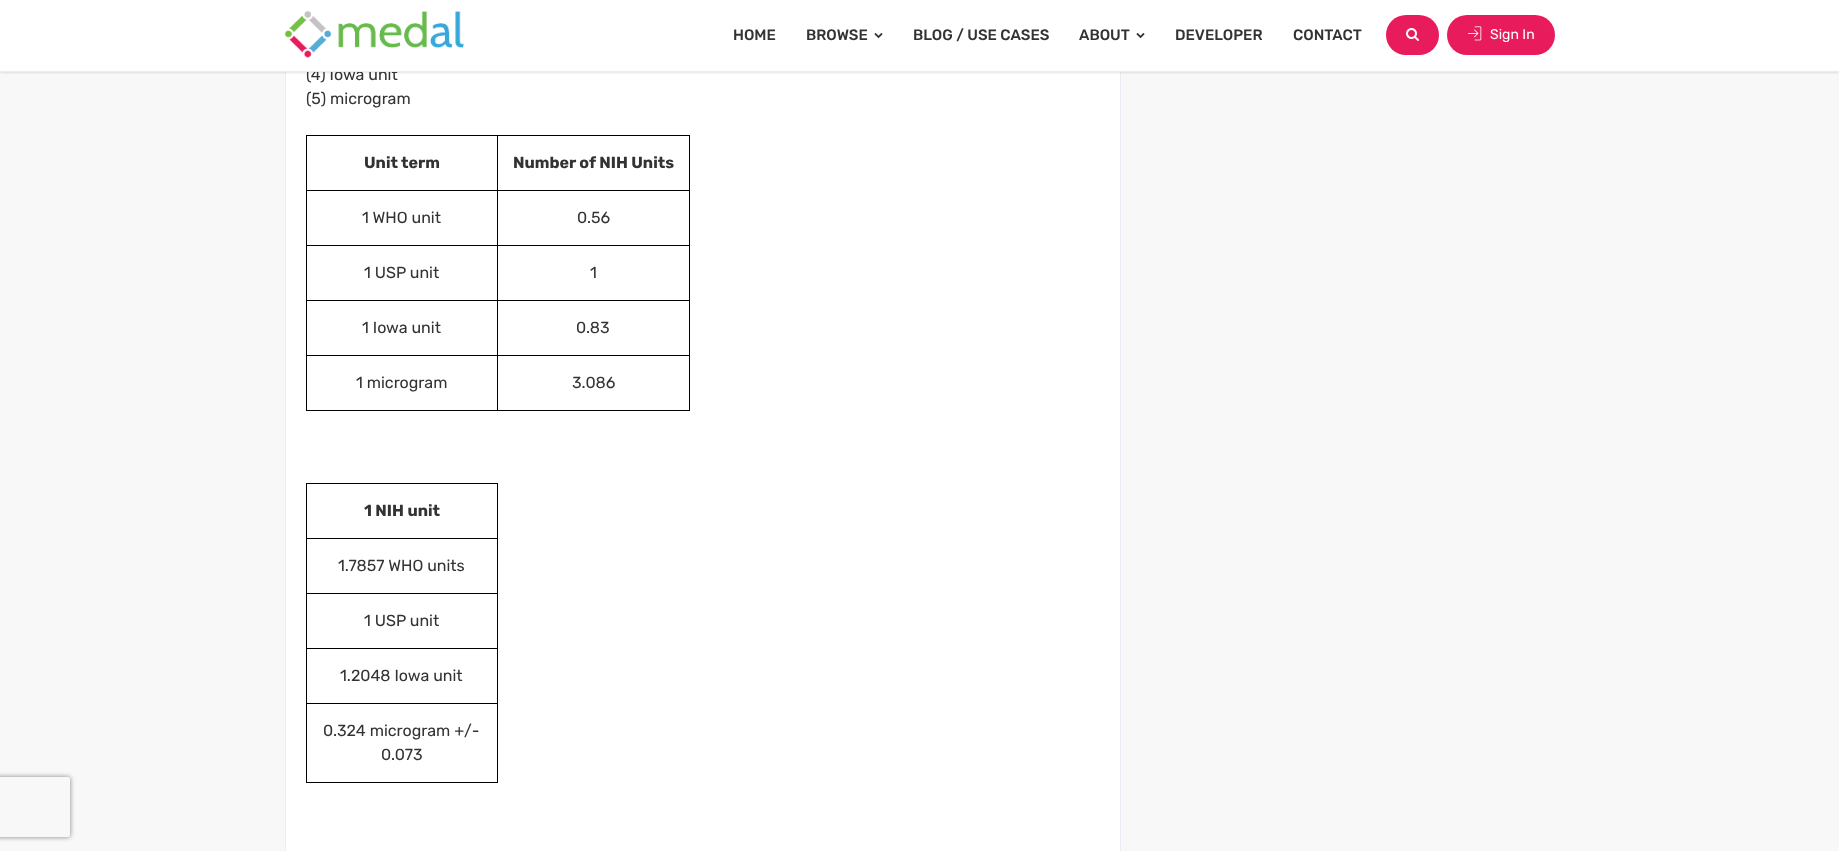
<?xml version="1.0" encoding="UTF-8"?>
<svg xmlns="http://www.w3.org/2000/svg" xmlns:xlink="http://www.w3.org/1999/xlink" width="1839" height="851">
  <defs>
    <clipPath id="clip1"><path d="M 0 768 h 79 v 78 h -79 z m -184 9 h 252 c 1 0 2 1 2 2 v 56 c 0 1 -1 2 -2 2 h -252 c -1 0 -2 -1 -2 -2 v -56 c 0 -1 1 -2 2 -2 z" clip-rule="evenodd" /></clipPath>
  </defs>
  <rect width="100%" height="100%" fill="#f8f8f8" />
  <rect x="286" y="72" width="834" height="779" fill="#ffffff" />
  <rect x="285.5" y="-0.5" width="835" height="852" fill="none" stroke="#ecebf5" />
  <rect width="1839" height="72" fill="#000000" fill-opacity="0.2" filter="blur(1.5px)" />
  <rect x="497" y="135" width="193" height="1" fill="#000000" />
  <rect x="497" y="190" width="193" height="1" fill="#000000" />
  <rect x="497" y="245" width="193" height="1" fill="#000000" />
  <rect x="497" y="300" width="193" height="1" fill="#000000" />
  <rect x="497" y="355" width="193" height="1" fill="#000000" />
  <rect x="689" y="355" width="1" height="56" fill="#000000" />
  <rect x="497" y="410" width="193" height="1" fill="#000000" />
  <rect x="497" y="355" width="1" height="56" fill="#000000" />
  <rect x="306" y="355" width="192" height="1" fill="#000000" />
  <rect x="497" y="300" width="1" height="56" fill="#000000" />
  <rect x="306" y="300" width="192" height="1" fill="#000000" />
  <rect x="497" y="245" width="1" height="56" fill="#000000" />
  <rect x="306" y="245" width="192" height="1" fill="#000000" />
  <rect x="497" y="190" width="1" height="56" fill="#000000" />
  <rect x="306" y="190" width="192" height="1" fill="#000000" />
  <rect x="497" y="135" width="1" height="56" fill="#000000" />
  <rect x="306" y="135" width="192" height="1" fill="#000000" />
  <rect x="306" y="410" width="192" height="1" fill="#000000" />
  <rect x="306" y="355" width="1" height="56" fill="#000000" />
  <rect x="306" y="300" width="1" height="56" fill="#000000" />
  <rect x="306" y="245" width="1" height="56" fill="#000000" />
  <rect x="306" y="190" width="1" height="56" fill="#000000" />
  <rect x="306" y="135" width="1" height="56" fill="#000000" />
  <rect x="689" y="300" width="1" height="56" fill="#000000" />
  <rect x="689" y="245" width="1" height="56" fill="#000000" />
  <rect x="689" y="190" width="1" height="56" fill="#000000" />
  <rect x="689" y="135" width="1" height="56" fill="#000000" />
  <rect x="306" y="483" width="192" height="1" fill="#000000" />
  <rect x="306" y="538" width="192" height="1" fill="#000000" />
  <rect x="306" y="593" width="192" height="1" fill="#000000" />
  <rect x="306" y="648" width="192" height="1" fill="#000000" />
  <rect x="306" y="703" width="192" height="1" fill="#000000" />
  <rect x="497" y="703" width="1" height="80" fill="#000000" />
  <rect x="497" y="648" width="1" height="56" fill="#000000" />
  <rect x="497" y="593" width="1" height="56" fill="#000000" />
  <rect x="497" y="538" width="1" height="56" fill="#000000" />
  <rect x="497" y="483" width="1" height="56" fill="#000000" />
  <rect x="306" y="782" width="192" height="1" fill="#000000" />
  <rect x="306" y="703" width="1" height="80" fill="#000000" />
  <rect x="306" y="648" width="1" height="56" fill="#000000" />
  <rect x="306" y="593" width="1" height="56" fill="#000000" />
  <rect x="306" y="538" width="1" height="56" fill="#000000" />
  <rect x="306" y="483" width="1" height="56" fill="#000000" />
  <g clip-path="url(#clip1)">
    <rect x="-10" y="777" width="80" height="60" rx="2" fill="#808080" filter="blur(2.5px)" />
  </g>
  <text x="306" y="80" style="font-family: Rubik; font-size: 16px; fill: #333333">(4) Iowa unit</text>
  <rect width="1839" height="71" fill="#ffffff" />
  <rect x="1447" y="15" width="108" height="40" rx="20" fill="#e81b5c" />
  <image x="1468" y="26" width="14" height="15" xlink:href="image4.png" />
  <text x="1490" y="39" style="font-family: Rubik; font-size: 14px; fill: #ffffff">Sign In</text>
  <rect x="1386" y="15" width="53" height="40" rx="20" fill="#e81b5c" />
  <image x="1406" y="28" width="13" height="13" xlink:href="image3.png" />
  <image x="284" y="11" width="180" height="47" xlink:href="image1.png" />
  <text x="1293" y="40" style="font-family: Rubik; font-size: 15px; font-weight: 500; fill: #333333">CONTACT</text>
  <text x="1175" y="40" style="font-family: Rubik; font-size: 15px; font-weight: 500; fill: #333333">DEVELOPER</text>
  <image x="1136" y="33" width="9" height="6" xlink:href="image2.png" />
  <text x="1079" y="40" style="font-family: Rubik; font-size: 15px; font-weight: 500; fill: #333333">ABOUT</text>
  <text x="913" y="40" style="font-family: Rubik; font-size: 15px; font-weight: 500; fill: #333333">BLOG / USE CASES</text>
  <image x="874" y="33" width="9" height="6" xlink:href="image2.png" />
  <text x="806" y="40" style="font-family: Rubik; font-size: 15px; font-weight: 500; fill: #333333">BROWSE</text>
  <text x="733" y="40" style="font-family: Rubik; font-size: 15px; font-weight: 500; fill: #333333">HOME</text>
  <rect y="71" width="1839" height="1" fill="#e8edf1" />
  <text x="306" y="104" style="font-family: Rubik; font-size: 16px; fill: #333333">(5) microgram</text>
  <text x="364" y="168" style="font-family: Rubik; font-size: 16px; font-weight: bold; fill: #333333">Unit term</text>
  <text x="513" y="168" style="font-family: Rubik; font-size: 16px; font-weight: bold; fill: #333333">Number of NIH Units</text>
  <text x="362" y="223" style="font-family: Rubik; font-size: 16px; fill: #333333">1 WHO unit</text>
  <text x="577" y="223" style="font-family: Rubik; font-size: 16px; fill: #333333">0.56</text>
  <text x="364" y="278" style="font-family: Rubik; font-size: 16px; fill: #333333">1 USP unit</text>
  <text x="590" y="278" style="font-family: Rubik; font-size: 16px; fill: #333333">1</text>
  <text x="362" y="333" style="font-family: Rubik; font-size: 16px; fill: #333333">1 Iowa unit</text>
  <text x="576" y="333" style="font-family: Rubik; font-size: 16px; fill: #333333">0.83</text>
  <text x="356" y="388" style="font-family: Rubik; font-size: 16px; fill: #333333">1 microgram</text>
  <text x="572" y="388" style="font-family: Rubik; font-size: 16px; fill: #333333">3.086</text>
  <text x="364" y="516" style="font-family: Rubik; font-size: 16px; font-weight: bold; fill: #333333">1 NIH unit</text>
  <text x="338" y="571" style="font-family: Rubik; font-size: 16px; fill: #333333">1.7857 WHO units</text>
  <text x="364" y="626" style="font-family: Rubik; font-size: 16px; fill: #333333">1 USP unit</text>
  <text x="340" y="681" style="font-family: Rubik; font-size: 16px; fill: #333333">1.2048 Iowa unit</text>
  <text x="323" y="736" style="font-family: Rubik; font-size: 16px; fill: #333333">0.324 microgram +/-</text>
  <text x="381" y="760" style="font-family: Rubik; font-size: 16px; fill: #333333">0.073</text>
</svg>
